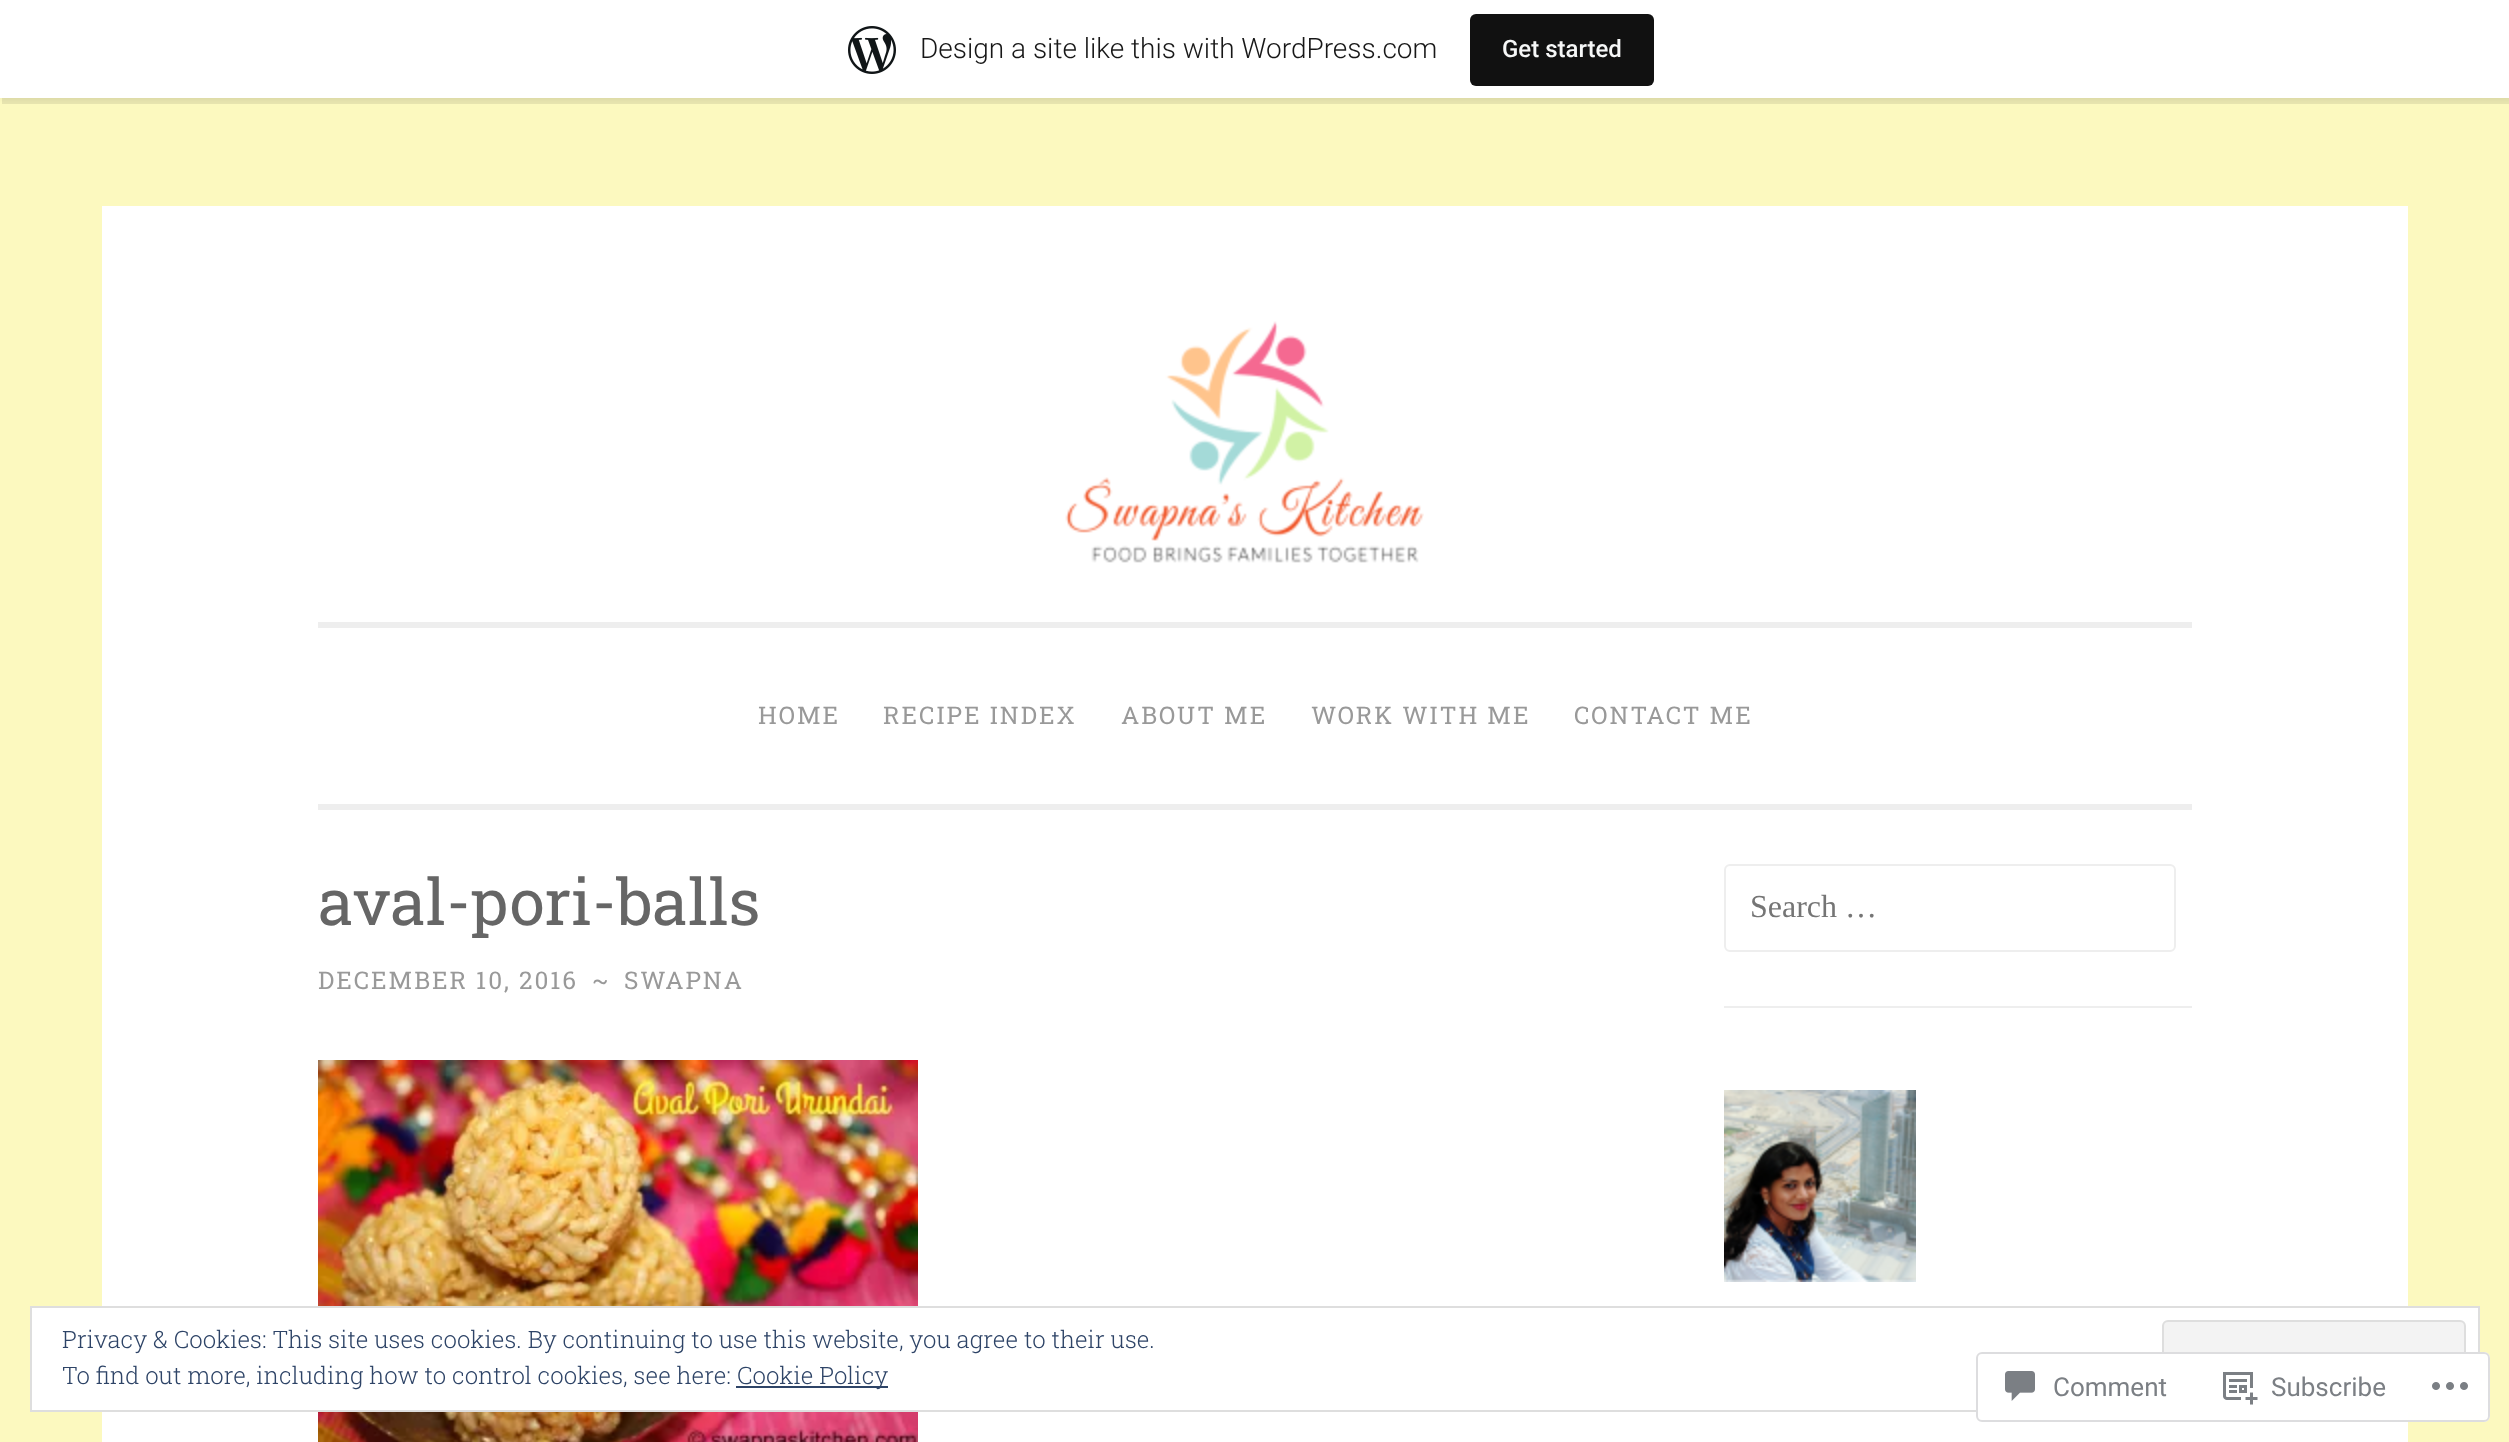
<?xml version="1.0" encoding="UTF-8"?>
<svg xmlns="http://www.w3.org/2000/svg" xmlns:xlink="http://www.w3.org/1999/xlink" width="2509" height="1442">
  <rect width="100%" height="100%" fill="#fcf9bf" />
  <rect y="2" width="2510" height="98" fill="#000000" fill-opacity="0.05" filter="blur(2px)" />
  <path d="M 2 98 v 6 h 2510 v -98 h -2 v 92 z" fill="#000000" fill-opacity="0.08" />
  <rect width="2509" height="98" fill="#ffffff" />
  <image x="848" y="26" width="48" height="48" xlink:href="image1.png" />
  <rect x="1470" y="14" width="184" height="72" rx="6" fill="#111111" />
  <rect x="102" y="206" width="2306" height="1236" fill="#ffffff" />
  <rect x="318" y="804" width="1874" height="6" fill="#eeeeee" />
  <image x="1065" y="321" width="359" height="242" xlink:href="image2.png" />
  <rect x="318" y="622" width="1874" height="6" fill="#eeeeee" />
  <image x="318" y="1060" width="600" height="382" xlink:href="image3.png" />
  <rect x="1724" y="1006" width="468" height="2" fill="#eeeeee" />
  <rect x="1725" y="865" width="450" height="86" rx="5" fill="none" stroke="#eeeeee" stroke-width="2" />
  <image x="1724" y="1090" width="192" height="192" xlink:href="image4.png" />
  <rect x="31" y="1307" width="2448" height="104" fill="#ffffff" stroke="#dedede" stroke-width="2" />
  <rect x="2163" y="1321" width="302" height="76" rx="5" fill="#f3f3f3" stroke="#dedede" stroke-width="2" />
  <rect x="736" y="1386" width="152" height="2" fill="#2e4467" />
  <rect x="1976" y="1352" width="514" height="70" rx="6" fill="#ffffff" fill-opacity="0.98" />
  <rect x="1977" y="1353" width="512" height="68" rx="5" fill="none" stroke="#dcdcde" stroke-opacity="0.98" stroke-width="2" />
  <image x="2005" y="1371" width="30" height="30" xlink:href="image5.png" />
  <image x="2223" y="1372" width="35" height="33" xlink:href="image6.png" />
  <image x="2432" y="1382" width="36" height="8" xlink:href="image7.png" />
  <text x="920" y="58" style="font-family: Roboto; font-size: 28px; font-weight: 300; fill: #171717">Design a site like this with WordPress.com</text>
  <text x="1502" y="57" style="font-family: Roboto; font-size: 24px; font-weight: 500; fill: #f6f7f7">Get started</text>
  <text x="758" y="724" style="font-family: Roboto Slab; font-size: 24.4px; letter-spacing: 2px; fill: #999999">HOME</text>
  <text x="883" y="724" style="font-family: Roboto Slab; font-size: 24.4px; letter-spacing: 2px; fill: #999999">RECIPE INDEX</text>
  <text x="1121" y="724" style="font-family: Roboto Slab; font-size: 24.4px; letter-spacing: 2px; fill: #999999">ABOUT ME</text>
  <text x="1311" y="724" style="font-family: Roboto Slab; font-size: 24.4px; letter-spacing: 2px; fill: #999999">WORK WITH ME</text>
  <text x="1574" y="724" style="font-family: Roboto Slab; font-size: 24.4px; letter-spacing: 2px; fill: #999999">CONTACT ME</text>
  <text x="318" y="925" style="font-family: Roboto Slab; font-size: 64px; fill: #666666">aval-pori-balls</text>
  <text x="318" y="989" style="font-family: Roboto Slab; font-size: 24.4px; letter-spacing: 2px; fill: #999999">DECEMBER 10, 2016</text>
  <text x="592" y="989" style="font-family: Roboto Slab; font-size: 24.4px; letter-spacing: 2px; fill: #999999">~</text>
  <text x="624" y="989" style="font-family: Roboto Slab; font-size: 24.4px; letter-spacing: 2px; fill: #999999">SWAPNA</text>
  <text x="1750" y="917" style="font-family: Liberation Serif; font-size: 32px; fill: #757575">Search …</text>
  <text x="62" y="1348" style="font-family: Roboto Slab; font-size: 24px; font-weight: 300; fill: #2e4467">Privacy &amp; Cookies: This site uses cookies. By continuing to use this website, you agree to their use.</text>
  <text x="62" y="1384" style="font-family: Roboto Slab; font-size: 24px; font-weight: 300; fill: #2e4467">To find out more, including how to control cookies, see here:</text>
  <text x="737" y="1384" style="font-family: Roboto Slab; font-size: 24px; font-weight: 300; fill: #2e4467">Cookie Policy</text>
  <text x="2053" y="1396" style="font-family: Roboto; font-size: 26px; fill: #7b7f84">Comment</text>
  <text x="2271" y="1396" style="font-family: Roboto; font-size: 26px; fill: #7b7f84">Subscribe</text>
</svg>
